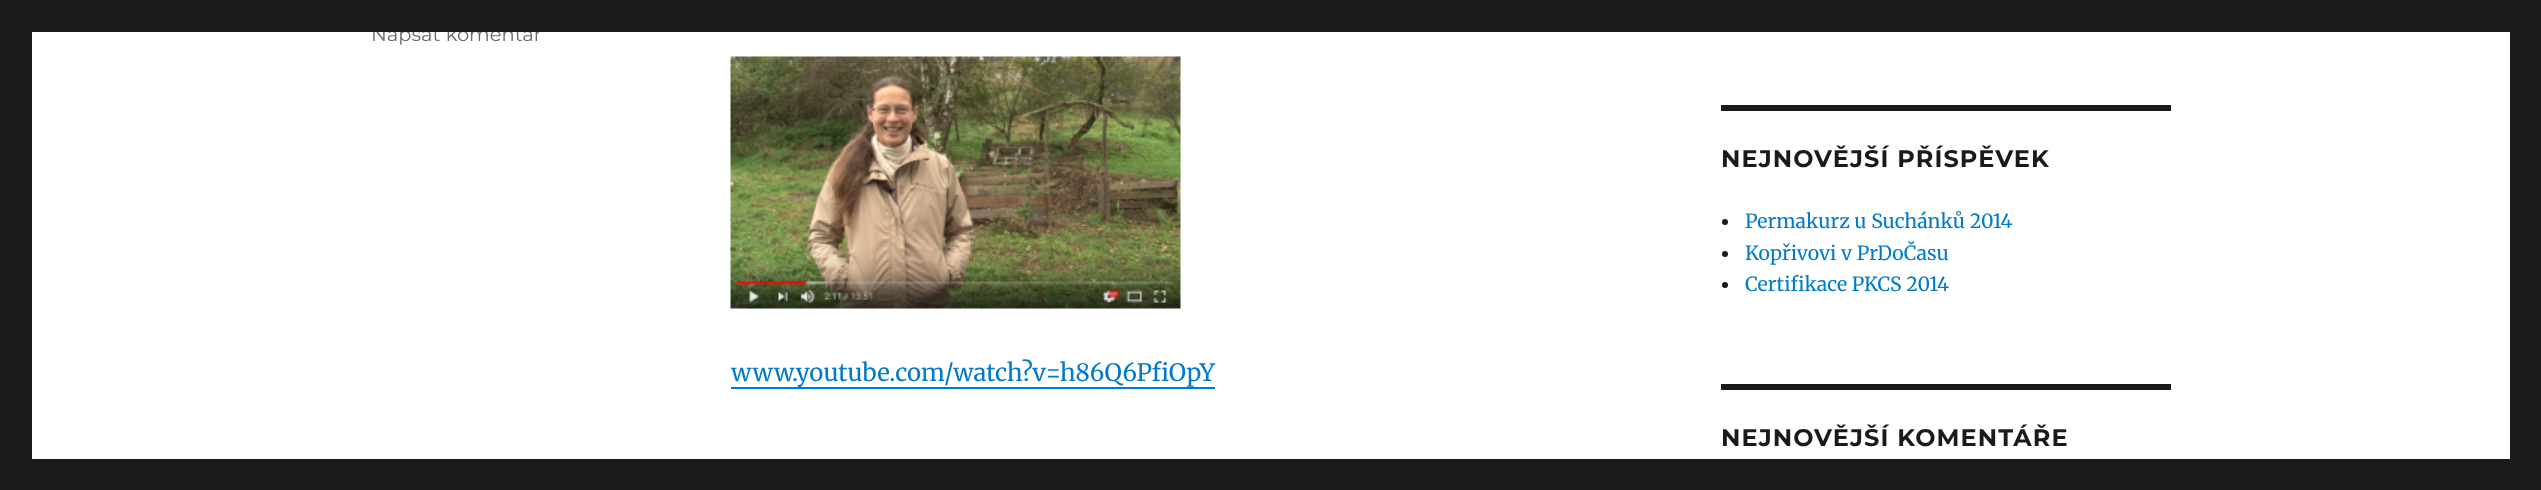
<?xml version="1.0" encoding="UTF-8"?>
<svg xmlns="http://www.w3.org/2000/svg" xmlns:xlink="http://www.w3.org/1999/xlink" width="2541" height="490">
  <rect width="100%" height="100%" fill="#1a1a1a" />
  <rect x="32" y="32" width="2478" height="427" fill="#ffffff" />
  <image x="730" y="56" width="451" height="253" xlink:href="image1.png" />
  <rect x="731" y="387" width="484" height="2" fill="#007acc" />
  <rect x="1721" y="105" width="450" height="6" fill="#1a1a1a" />
  <circle cx="1725" cy="222" r="3" fill="#1a1a1a" />
  <circle cx="1725" cy="254" r="3" fill="#1a1a1a" />
  <circle cx="1725" cy="285" r="3" fill="#1a1a1a" />
  <rect x="1721" y="384" width="450" height="6" fill="#1a1a1a" />
  <text x="371" y="41" style="font-family: Montserrat; font-size: 19.5px; fill: #686868">Napsat komentář</text>
  <text x="731" y="381" style="font-family: Merriweather; font-size: 24px; fill: #007acc">www.youtube.com/watch?v=h86Q6PfiOpY</text>
  <text x="1721" y="167" style="font-family: Montserrat; font-size: 24px; font-weight: bold; letter-spacing: 1.1px; fill: #1a1a1a">NEJNOVĚJŠÍ PŘÍSPĚVEK</text>
  <text x="1745" y="228" style="font-family: Merriweather; font-size: 19.5px; fill: #007acc">Permakurz u Suchánků 2014</text>
  <text x="1745" y="260" style="font-family: Merriweather; font-size: 19.5px; fill: #007acc">Kopřivovi v PrDoČasu</text>
  <text x="1745" y="291" style="font-family: Merriweather; font-size: 19.5px; fill: #007acc">Certifikace PKCS 2014</text>
  <text x="1721" y="446" style="font-family: Montserrat; font-size: 24px; font-weight: bold; letter-spacing: 1.1px; fill: #1a1a1a">NEJNOVĚJŠÍ KOMENTÁŘE</text>
  <rect x="372" y="26" width="169" height="6" fill="#1a1a1a" />
</svg>
